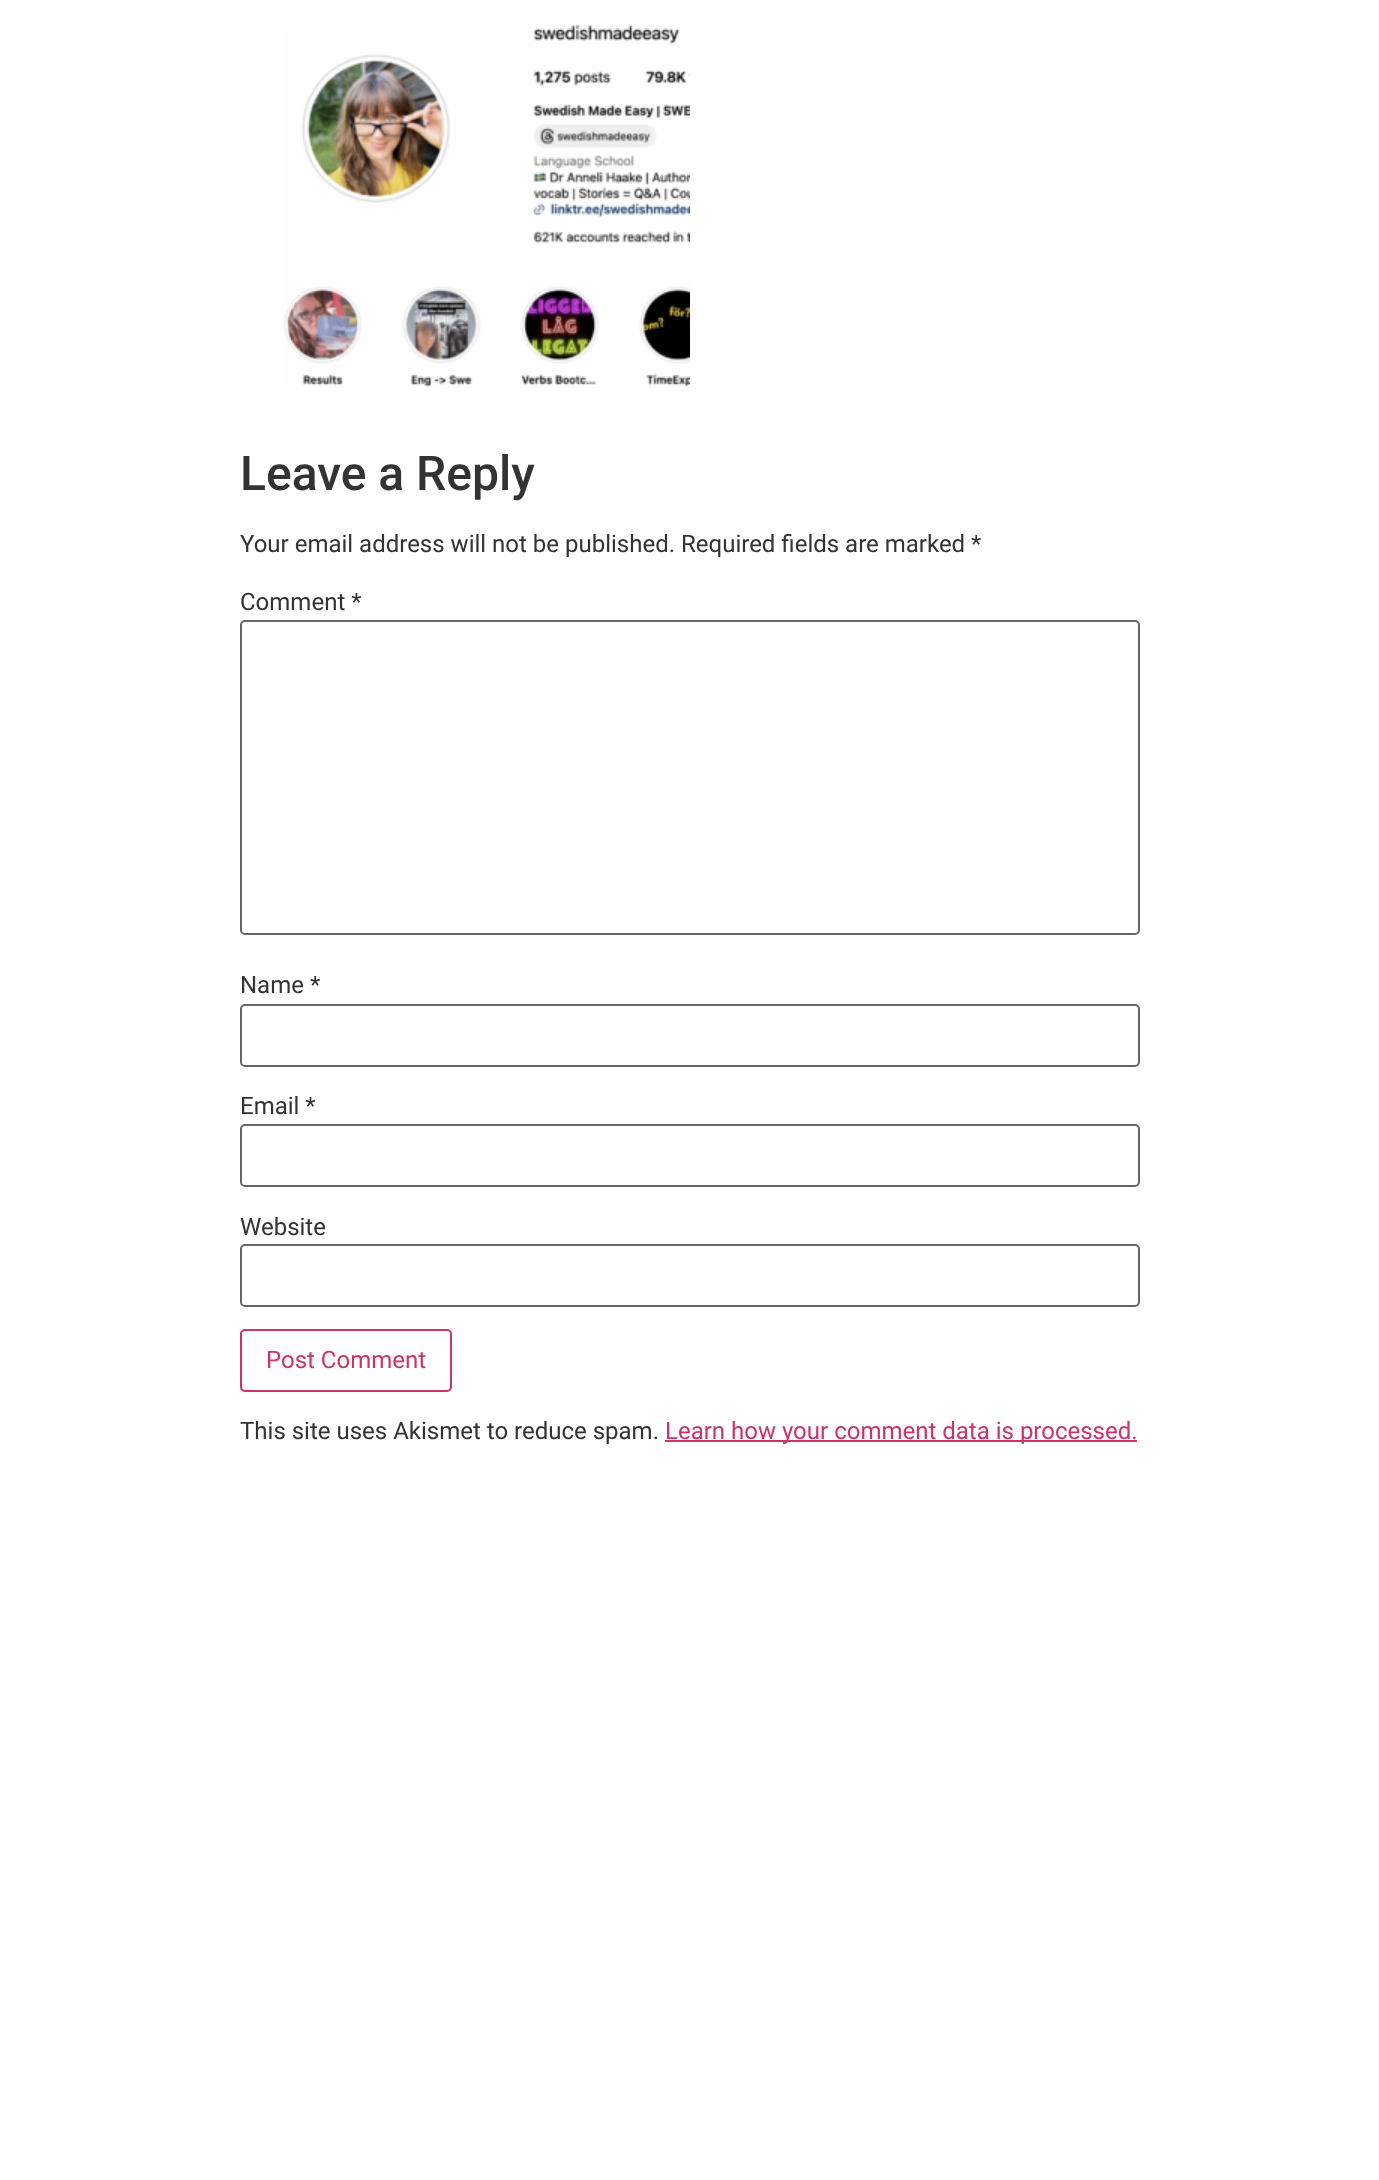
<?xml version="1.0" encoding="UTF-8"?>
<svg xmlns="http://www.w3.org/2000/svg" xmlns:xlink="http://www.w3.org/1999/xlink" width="1379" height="2180">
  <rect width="100%" height="100%" fill="#ffffff" />
  <image x="283" y="25" width="407" height="363" xlink:href="image1.png" />
  <rect x="241" y="621" width="898" height="313" rx="4" fill="none" stroke="#666666" stroke-width="2" />
  <rect x="241" y="1005" width="898" height="61" rx="4" fill="none" stroke="#666666" stroke-width="2" />
  <rect x="241" y="1125" width="898" height="61" rx="4" fill="none" stroke="#666666" stroke-width="2" />
  <rect x="241" y="1245" width="898" height="61" rx="4" fill="none" stroke="#666666" stroke-width="2" />
  <rect x="241" y="1330" width="210" height="61" rx="4" fill="none" stroke="#cc3366" stroke-width="2" />
  <rect x="665" y="1440" width="472" height="2" fill="#cc3366" />
  <text x="240" y="490" style="font-family: Roboto; font-size: 48px; font-weight: 500; fill: #333333">Leave a Reply</text>
  <text x="240" y="552" style="font-family: Roboto; font-size: 24px; fill: #333333">Your email address will not be published. Required fields are marked *</text>
  <text x="240" y="610" style="font-family: Roboto; font-size: 24px; fill: #333333">Comment *</text>
  <text x="240" y="993" style="font-family: Roboto; font-size: 24px; fill: #333333">Name *</text>
  <text x="240" y="1114" style="font-family: Roboto; font-size: 24px; fill: #333333">Email *</text>
  <text x="240" y="1235" style="font-family: Roboto; font-size: 24px; fill: #333333">Website</text>
  <text x="266" y="1368" style="font-family: Roboto; font-size: 24px; fill: #cc3366">Post Comment</text>
  <text x="240" y="1439" style="font-family: Roboto; font-size: 24px; fill: #333333">This site uses Akismet to reduce spam.</text>
  <text x="665" y="1439" style="font-family: Roboto; font-size: 24px; fill: #cc3366">Learn how your comment data is processed.</text>
</svg>
